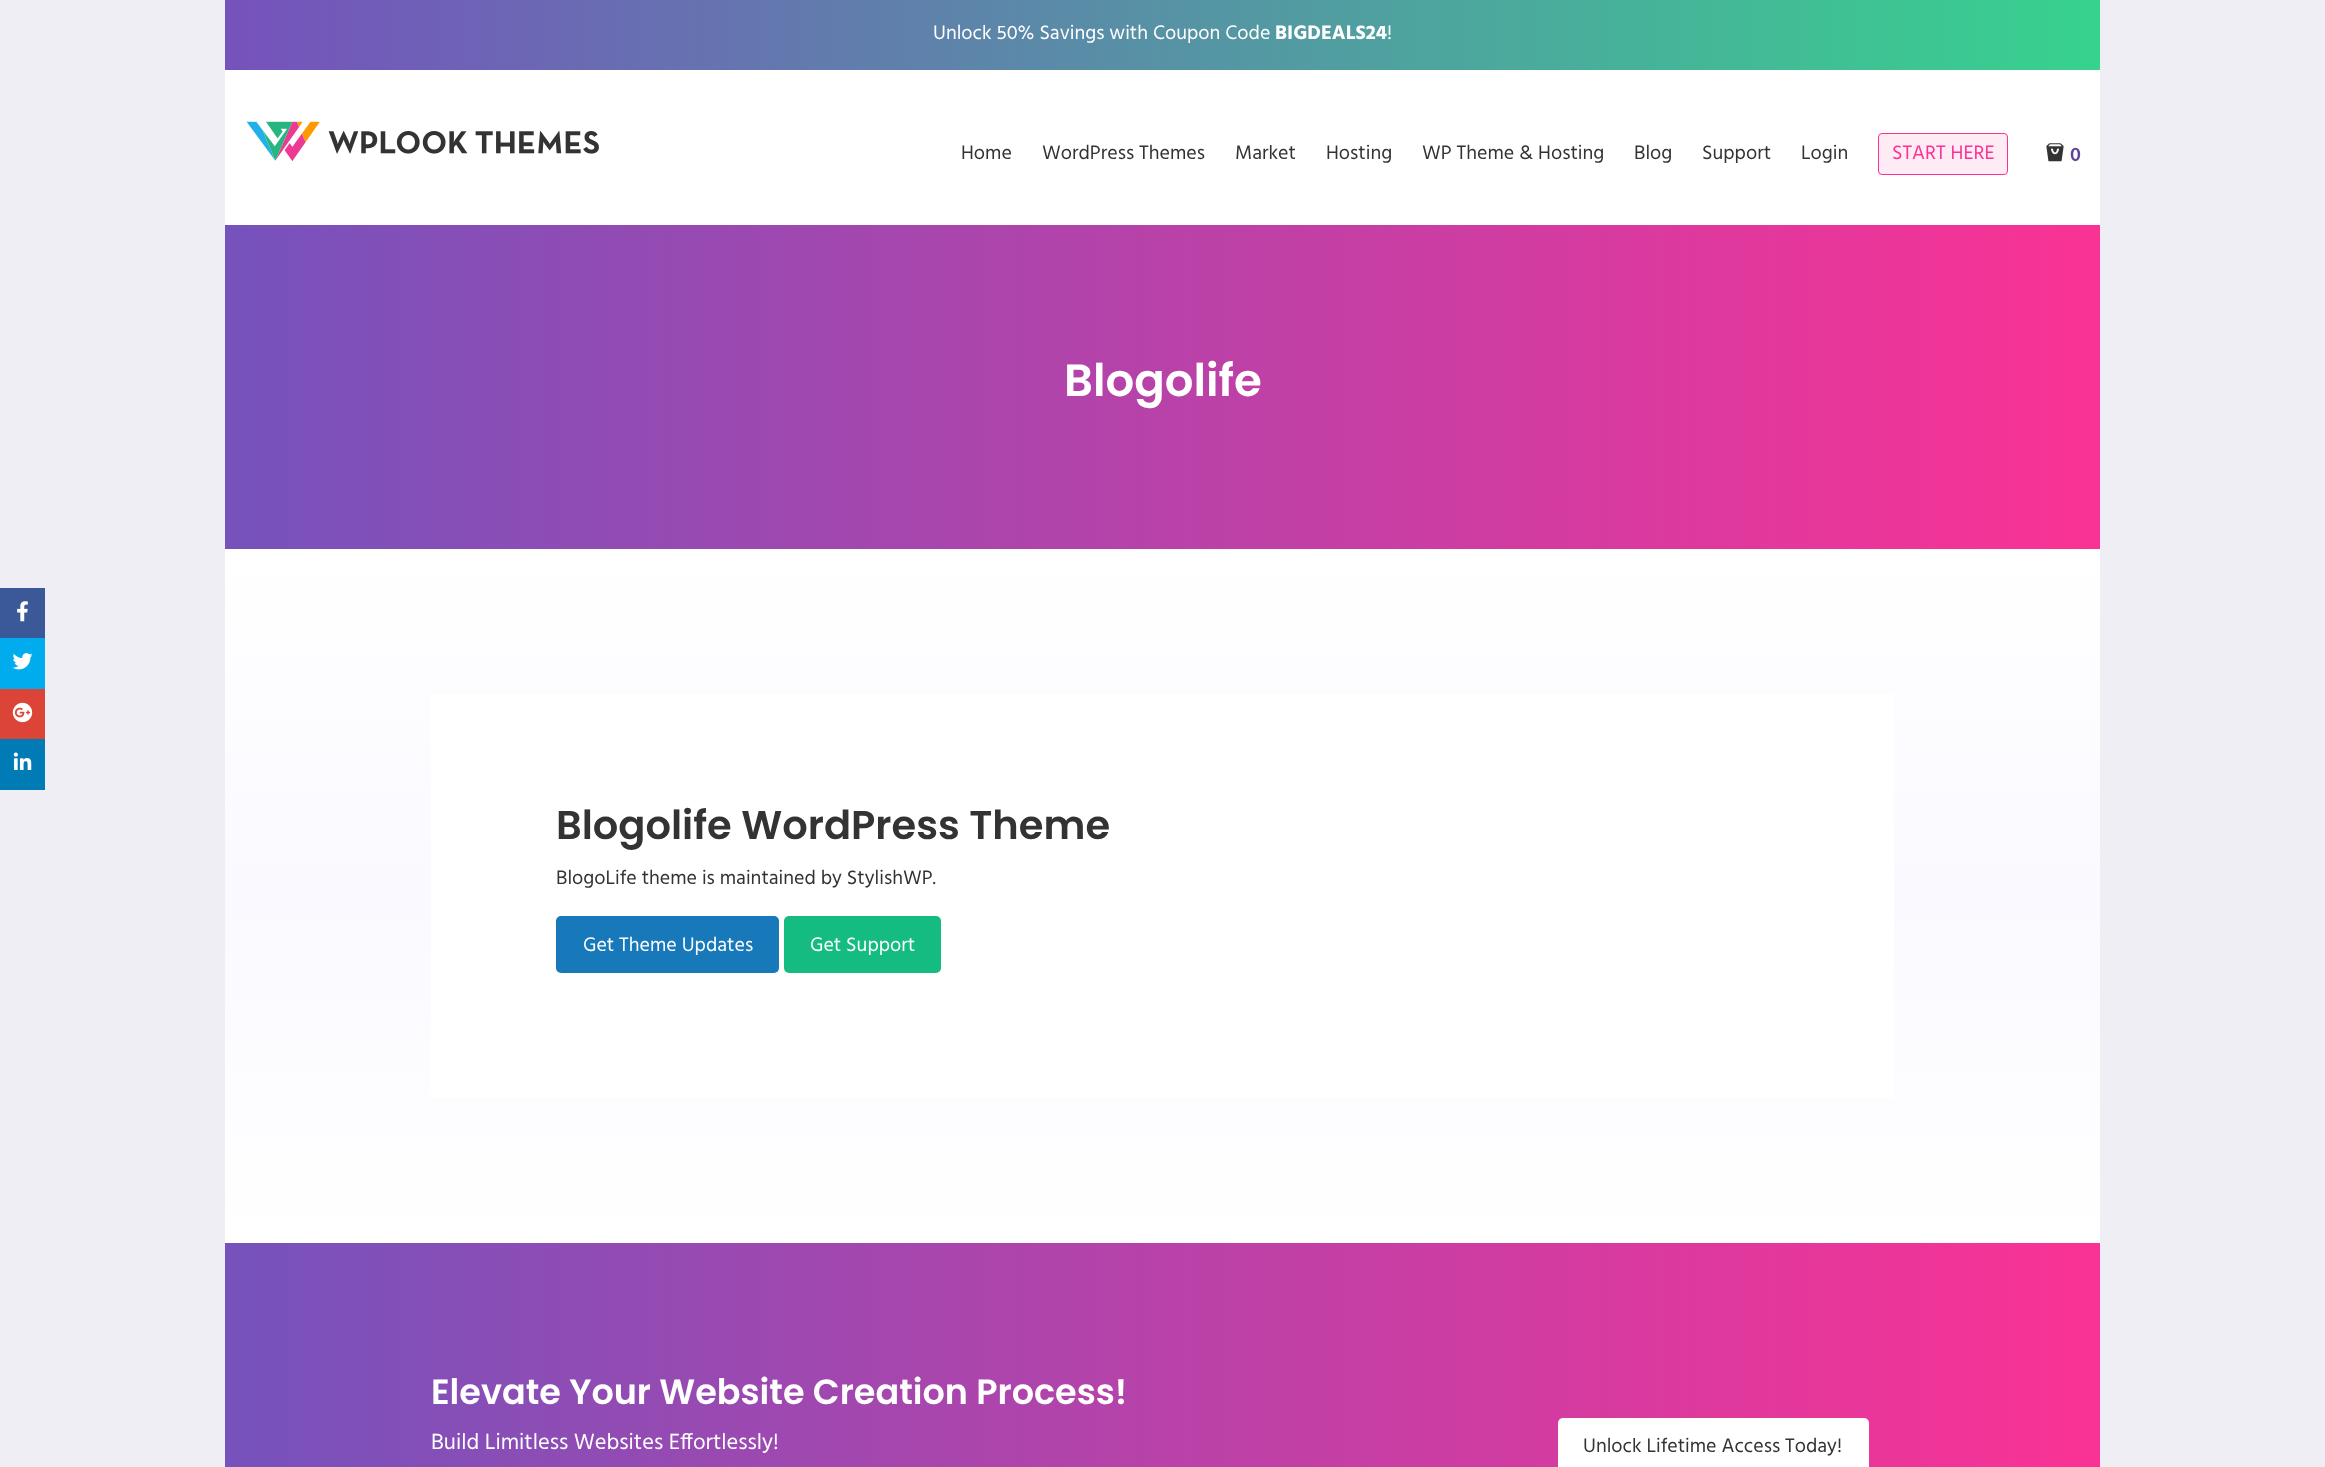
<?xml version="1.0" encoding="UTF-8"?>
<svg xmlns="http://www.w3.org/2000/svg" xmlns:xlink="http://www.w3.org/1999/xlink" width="2325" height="1467">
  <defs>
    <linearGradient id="g1" gradientUnits="userSpaceOnUse" x1="225" y1="35" x2="2100" y2="35"><stop offset="0" stop-color="#7652bc" /><stop offset="1" stop-color="#37d28e" /></linearGradient>
    <linearGradient id="g2" gradientUnits="userSpaceOnUse" x1="225" y1="387" x2="2100" y2="387"><stop offset="0" stop-color="#7652bc" /><stop offset="1" stop-color="#fa3295" /></linearGradient>
    <linearGradient id="g3" gradientUnits="userSpaceOnUse" x1="1163" y1="549" x2="1163" y2="1243"><stop offset="0" stop-color="#ffffff" /><stop offset="0.5" stop-color="#faf9ff" /><stop offset="1" stop-color="#ffffff" /></linearGradient>
    <linearGradient id="g4" gradientUnits="userSpaceOnUse" x1="225" y1="1431" x2="2100" y2="1431"><stop offset="0" stop-color="#7652bc" /><stop offset="1" stop-color="#fa3295" /></linearGradient>
  </defs>
  <rect width="100%" height="100%" fill="#efeef4" />
  <rect x="225" y="70" width="1875" height="155" fill="#ffffff" />
  <rect x="225" width="1875" height="70" fill="url(#g1)" />
  <image x="246" y="121" width="353" height="40" xlink:href="image1.png" />
  <rect x="1878.5" y="133.5" width="129" height="41" rx="3.5" fill="#ffebf4" stroke="#fa3295" />
  <image x="2046" y="143" width="18" height="19" xlink:href="image2.png" />
  <rect y="588" width="45" height="50" fill="#3b5998" />
  <image x="17" y="601" width="11" height="21" xlink:href="image3.png" />
  <rect y="638" width="45" height="51" fill="#00aced" />
  <image x="12" y="653" width="21" height="17" xlink:href="image4.png" />
  <rect y="689" width="45" height="50" fill="#db4437" />
  <image x="12" y="702" width="21" height="21" xlink:href="image5.png" />
  <rect y="739" width="45" height="51" fill="#007bb6" />
  <image x="13" y="752" width="19" height="18" xlink:href="image6.png" />
  <rect x="225" y="225" width="1875" height="324" fill="url(#g2)" />
  <rect x="225" y="549" width="1875" height="694" fill="url(#g3)" />
  <rect x="431" y="694" width="1463" height="404" fill="#ffffff" />
  <rect x="556" y="916" width="223" height="57" rx="5" fill="#1779ba" />
  <rect x="784" y="916" width="157" height="57" rx="5" fill="#14bc81" />
  <rect x="225" y="1243" width="1875" height="224" fill="url(#g4)" />
  <rect x="1558" y="1418" width="311" height="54" rx="5" fill="#ffffff" />
  <text x="933" y="39" style="font-family: Hind; font-size: 20px; fill: #ffffff">Unlock 50% Savings with Coupon Code</text>
  <text x="1275" y="39" style="font-family: Hind; font-size: 20px; font-weight: bold; fill: #ffffff">BIGDEALS24</text>
  <text x="1387" y="39" style="font-family: Hind; font-size: 20px; fill: #ffffff">!</text>
  <text x="961" y="159" style="font-family: Hind; font-size: 20px; fill: #333333">Home</text>
  <text x="1042" y="159" style="font-family: Hind; font-size: 20px; fill: #333333">WordPress Themes</text>
  <text x="1235" y="159" style="font-family: Hind; font-size: 20px; fill: #333333">Market</text>
  <text x="1326" y="159" style="font-family: Hind; font-size: 20px; fill: #333333">Hosting</text>
  <text x="1422" y="159" style="font-family: Hind; font-size: 20px; fill: #333333">WP Theme &amp; Hosting</text>
  <text x="1634" y="159" style="font-family: Hind; font-size: 20px; fill: #333333">Blog</text>
  <text x="1702" y="159" style="font-family: Hind; font-size: 20px; fill: #333333">Support</text>
  <text x="1801" y="159" style="font-family: Hind; font-size: 20px; fill: #333333">Login</text>
  <text x="1892" y="159" style="font-family: Hind; font-size: 20px; fill: #fa3295">START HERE</text>
  <text x="2070" y="161" style="font-family: Hind; font-size: 20px; font-weight: 600; fill: #624594">0</text>
  <text x="1064" y="396" style="font-family: Poppins; font-size: 45px; font-weight: 600; fill: #ffffff">Blogolife</text>
  <text x="556" y="839" style="font-family: Poppins; font-size: 40px; font-weight: 600; fill: #333333">Blogolife WordPress Theme</text>
  <text x="556" y="884" style="font-family: Hind; font-size: 20px; fill: #333333">BlogoLife theme is maintained by StylishWP.</text>
  <text x="583" y="951" style="font-family: Hind; font-size: 20px; fill: #ffffff">Get Theme Updates</text>
  <text x="810" y="951" style="font-family: Hind; font-size: 20px; fill: #ffffff">Get Support</text>
  <text x="431" y="1404" style="font-family: Poppins; font-size: 35px; font-weight: 600; fill: #ffffff">Elevate Your Website Creation Process!</text>
  <text x="431" y="1449" style="font-family: Hind; font-size: 22.5px; fill: #ffffff">Build Limitless Websites Effortlessly!</text>
  <text x="1583" y="1452" style="font-family: Hind; font-size: 20px; fill: #333333">Unlock Lifetime Access Today!</text>
</svg>
